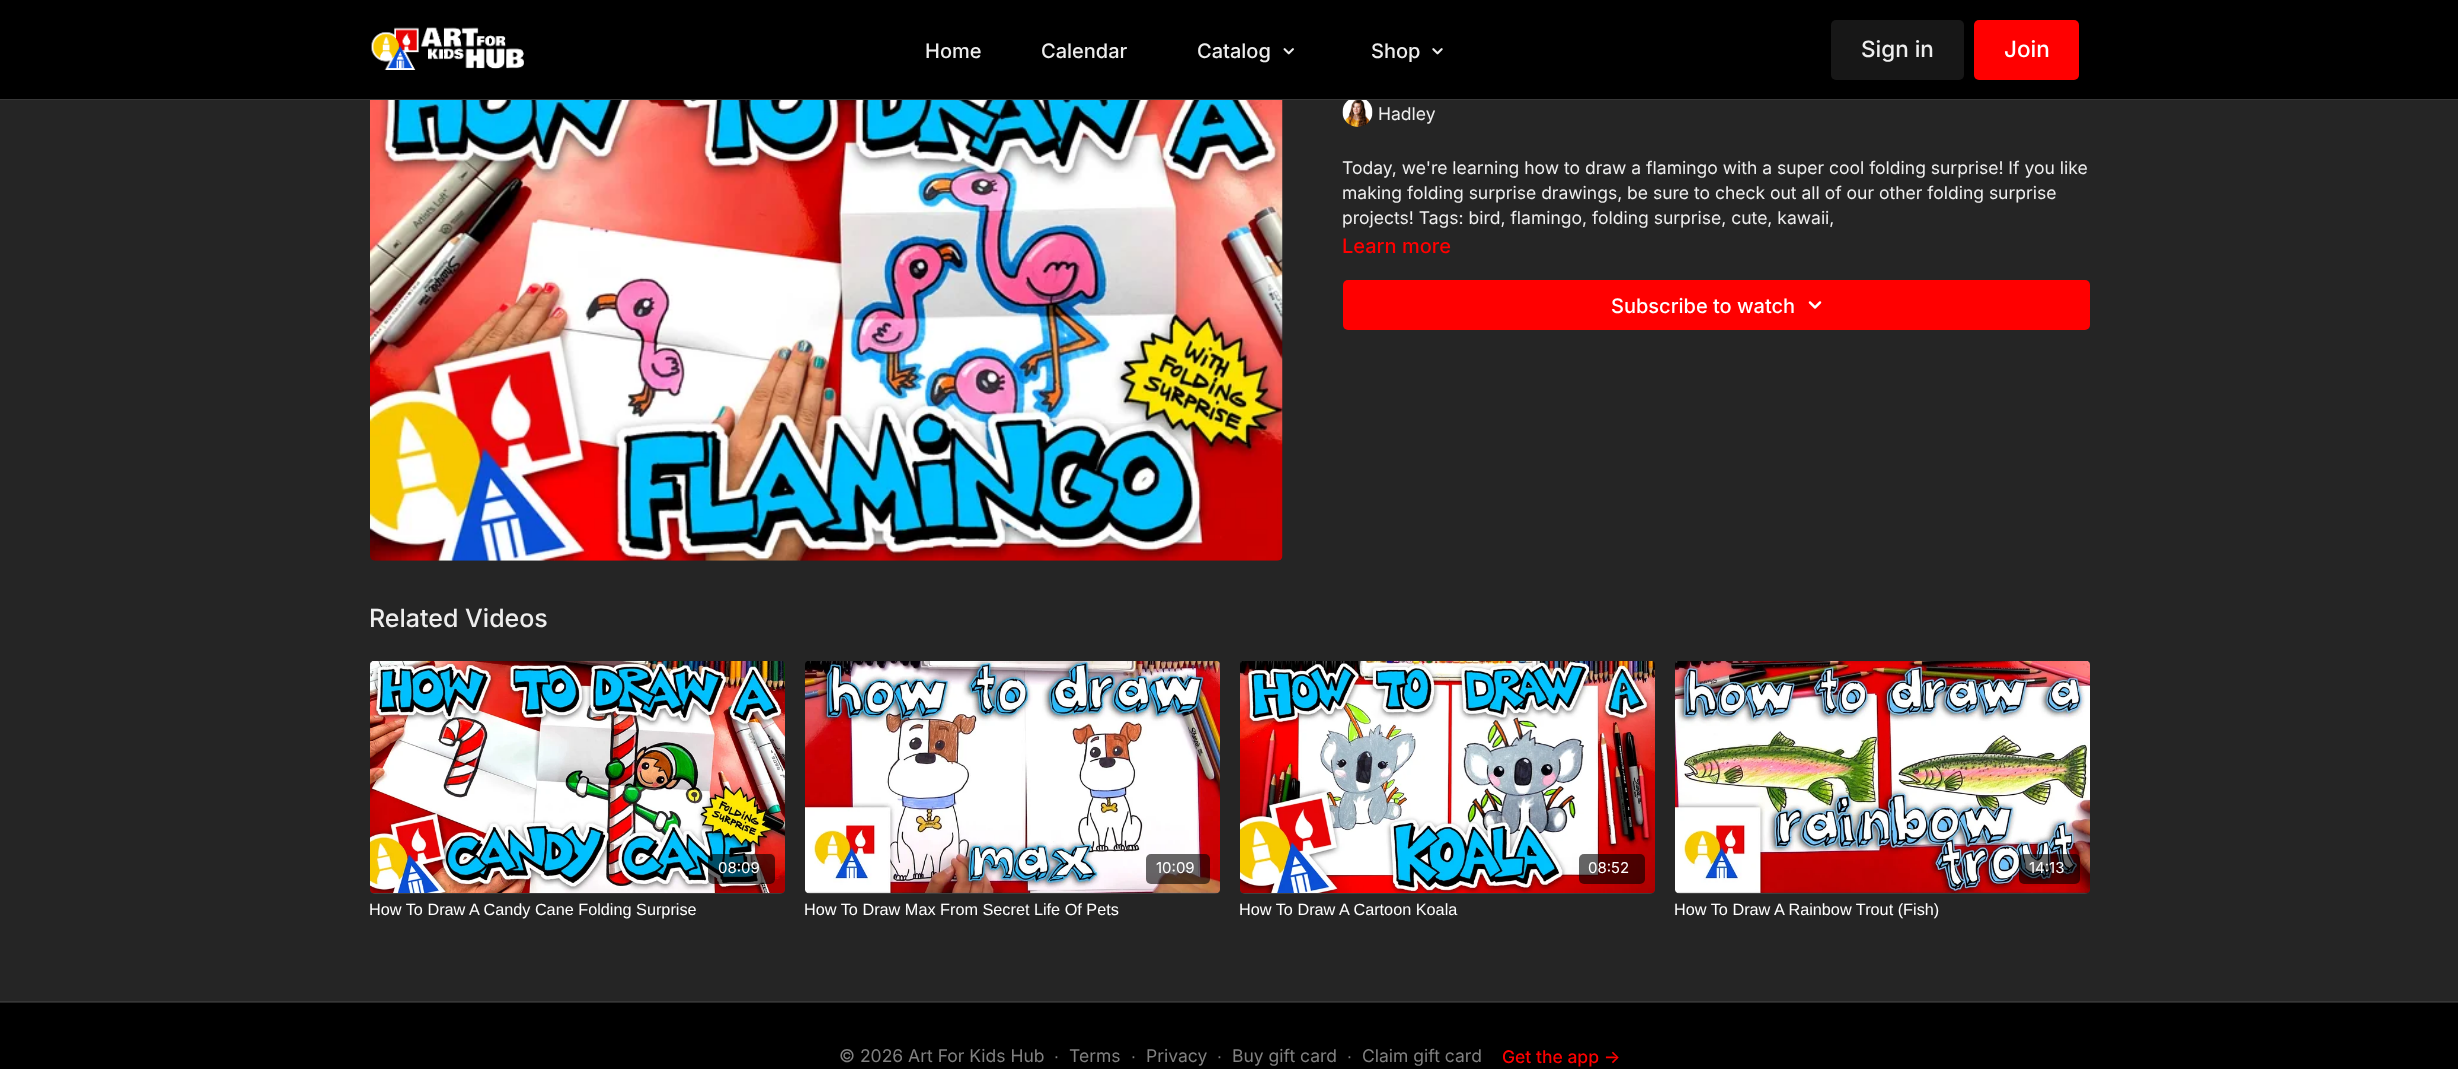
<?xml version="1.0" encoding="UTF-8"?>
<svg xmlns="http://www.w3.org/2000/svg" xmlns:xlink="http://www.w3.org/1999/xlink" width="2458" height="1069">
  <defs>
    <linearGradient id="g1" gradientUnits="userSpaceOnUse" x1="370" y1="778" x2="785" y2="778"><stop offset="0.08" stop-color="#414141" /><stop offset="0.18" stop-color="#3f3f3f" /><stop offset="0.33" stop-color="#3d3d3d" /></linearGradient>
    <linearGradient id="g2" gradientUnits="userSpaceOnUse" x1="805" y1="778" x2="1220" y2="778"><stop offset="0.08" stop-color="#414141" /><stop offset="0.18" stop-color="#3f3f3f" /><stop offset="0.33" stop-color="#3d3d3d" /></linearGradient>
    <linearGradient id="g3" gradientUnits="userSpaceOnUse" x1="1240" y1="778" x2="1655" y2="778"><stop offset="0.08" stop-color="#414141" /><stop offset="0.18" stop-color="#3f3f3f" /><stop offset="0.33" stop-color="#3d3d3d" /></linearGradient>
    <linearGradient id="g4" gradientUnits="userSpaceOnUse" x1="1675" y1="778" x2="2090" y2="778"><stop offset="0.08" stop-color="#414141" /><stop offset="0.18" stop-color="#3f3f3f" /><stop offset="0.33" stop-color="#3d3d3d" /></linearGradient>
  </defs>
  <rect width="100%" height="100%" fill="#252525" />
  <rect width="2458" height="99" fill="#000000" />
  <rect y="99" width="2458" height="1" fill="#373737" />
  <image x="371" y="27" width="153" height="43" xlink:href="image1.png" />
  <image x="1283" y="48" width="11" height="7" xlink:href="image2.png" />
  <image x="1432" y="48" width="11" height="7" xlink:href="image3.png" />
  <rect x="1831" y="20" width="133" height="60" rx="5" fill="#171717" />
  <rect x="1974" y="20" width="105" height="60" rx="5" fill="#ff0000" />
  <image x="370" y="100" width="913" height="461" xlink:href="image4.png" />
  <image x="1342" y="100" width="31" height="27" xlink:href="image5.png" />
  <rect x="1343" y="280" width="747" height="50" rx="5" fill="#ff0000" />
  <image x="1808" y="301" width="14" height="8" xlink:href="image6.png" />
  <rect x="370" y="661" width="415" height="233" rx="5" fill="url(#g1)" />
  <image x="370" y="661" width="415" height="232" xlink:href="image7.png" />
  <rect x="708" y="854" width="67" height="30" rx="5" fill="#000000" fill-opacity="0.6" />
  <rect x="805" y="661" width="415" height="233" rx="5" fill="url(#g2)" />
  <image x="805" y="661" width="415" height="232" xlink:href="image8.png" />
  <rect x="1146" y="854" width="64" height="30" rx="5" fill="#000000" fill-opacity="0.6" />
  <rect x="1240" y="661" width="415" height="233" rx="5" fill="url(#g3)" />
  <image x="1240" y="661" width="415" height="232" xlink:href="image9.png" />
  <rect x="1579" y="854" width="66" height="30" rx="5" fill="#000000" fill-opacity="0.6" />
  <rect x="1675" y="661" width="415" height="233" rx="5" fill="url(#g4)" />
  <image x="1675" y="661" width="415" height="232" xlink:href="image10.png" />
  <rect x="2019" y="854" width="61" height="30" rx="5" fill="#000000" fill-opacity="0.6" />
  <rect y="1003" width="2458" height="66" fill="#000000" />
  <rect y="1001" width="2458" height="1" fill="#373737" />
  <text x="925" y="58" style="font-family: Inter; font-size: 20px; font-weight: 500; fill: #eeeeee">Home</text>
  <text x="1041" y="58" style="font-family: Inter; font-size: 20px; font-weight: 500; fill: #eeeeee">Calendar</text>
  <text x="1197" y="58" style="font-family: Inter; font-size: 20px; font-weight: 500; fill: #eeeeee">Catalog</text>
  <text x="1371" y="58" style="font-family: Inter; font-size: 20px; font-weight: 500; fill: #eeeeee">Shop</text>
  <text x="1861" y="57" style="font-family: Inter; font-size: 22.5px; font-weight: 500; fill: #eeeeee">Sign in</text>
  <text x="2004" y="57" style="font-family: Inter; font-size: 22.5px; font-weight: 500; fill: #ffffff">Join</text>
  <text x="1378" y="120" style="font-family: Inter; font-size: 17.5px; fill: #eeeeee">Hadley</text>
  <text x="1342" y="174" style="font-family: Inter; font-size: 17.5px; fill: #eeeeee">Today, we're learning how to draw a flamingo with a super cool folding surprise! If you like</text>
  <text x="1342" y="199" style="font-family: Inter; font-size: 17.5px; fill: #eeeeee">making folding surprise drawings, be sure to check out all of our other folding surprise</text>
  <text x="1342" y="224" style="font-family: Inter; font-size: 17.5px; fill: #eeeeee">projects! Tags: bird, flamingo, folding surprise, cute, kawaii,</text>
  <text x="1342" y="253" style="font-family: Inter; font-size: 20px; font-weight: 500; fill: #ff0000">Learn more</text>
  <text x="1611" y="313" style="font-family: Inter; font-size: 20px; font-weight: 500; fill: #ffffff">Subscribe to watch</text>
  <text x="369" y="627" style="font-family: Inter; font-size: 25px; font-weight: 500; fill: #eeeeee">Related Videos</text>
  <text x="718" y="873" style="font-family: Inter; font-size: 15px; fill: #ffffff">08:09</text>
  <text x="369" y="915" style="font-family: Liberation Sans; font-size: 16.25px; fill: #ffffff">How To Draw A Candy Cane Folding Surprise</text>
  <text x="1156" y="873" style="font-family: Inter; font-size: 15px; fill: #ffffff">10:09</text>
  <text x="804" y="915" style="font-family: Liberation Sans; font-size: 16.25px; fill: #ffffff">How To Draw Max From Secret Life Of Pets</text>
  <text x="1588" y="873" style="font-family: Inter; font-size: 15px; fill: #ffffff">08:52</text>
  <text x="1239" y="915" style="font-family: Liberation Sans; font-size: 16.25px; fill: #ffffff">How To Draw A Cartoon Koala</text>
  <text x="2029" y="873" style="font-family: Inter; font-size: 15px; fill: #ffffff">14:13</text>
  <text x="1674" y="915" style="font-family: Liberation Sans; font-size: 16.25px; fill: #ffffff">How To Draw A Rainbow Trout (Fish)</text>
  <text x="839" y="1062" style="font-family: Inter; font-size: 17.5px; fill: #818181">© 2026 Art For Kids Hub</text>
  <text x="1054" y="1062" style="font-family: Liberation Sans; font-size: 17.5px; fill: #818181">∙</text>
  <text x="1069" y="1062" style="font-family: Inter; font-size: 17.5px; fill: #818181">Terms</text>
  <text x="1131" y="1062" style="font-family: Liberation Sans; font-size: 17.5px; fill: #818181">∙</text>
  <text x="1146" y="1062" style="font-family: Inter; font-size: 17.5px; fill: #818181">Privacy</text>
  <text x="1217" y="1062" style="font-family: Liberation Sans; font-size: 17.5px; fill: #818181">∙</text>
  <text x="1232" y="1062" style="font-family: Inter; font-size: 17.5px; fill: #818181">Buy gift card</text>
  <text x="1347" y="1062" style="font-family: Liberation Sans; font-size: 17.5px; fill: #818181">∙</text>
  <text x="1362" y="1062" style="font-family: Inter; font-size: 17.5px; fill: #818181">Claim gift card</text>
  <text x="1502" y="1063" style="font-family: Inter; font-size: 17.5px; font-weight: 500; fill: #ff0000">Get the app -&gt;</text>
</svg>
